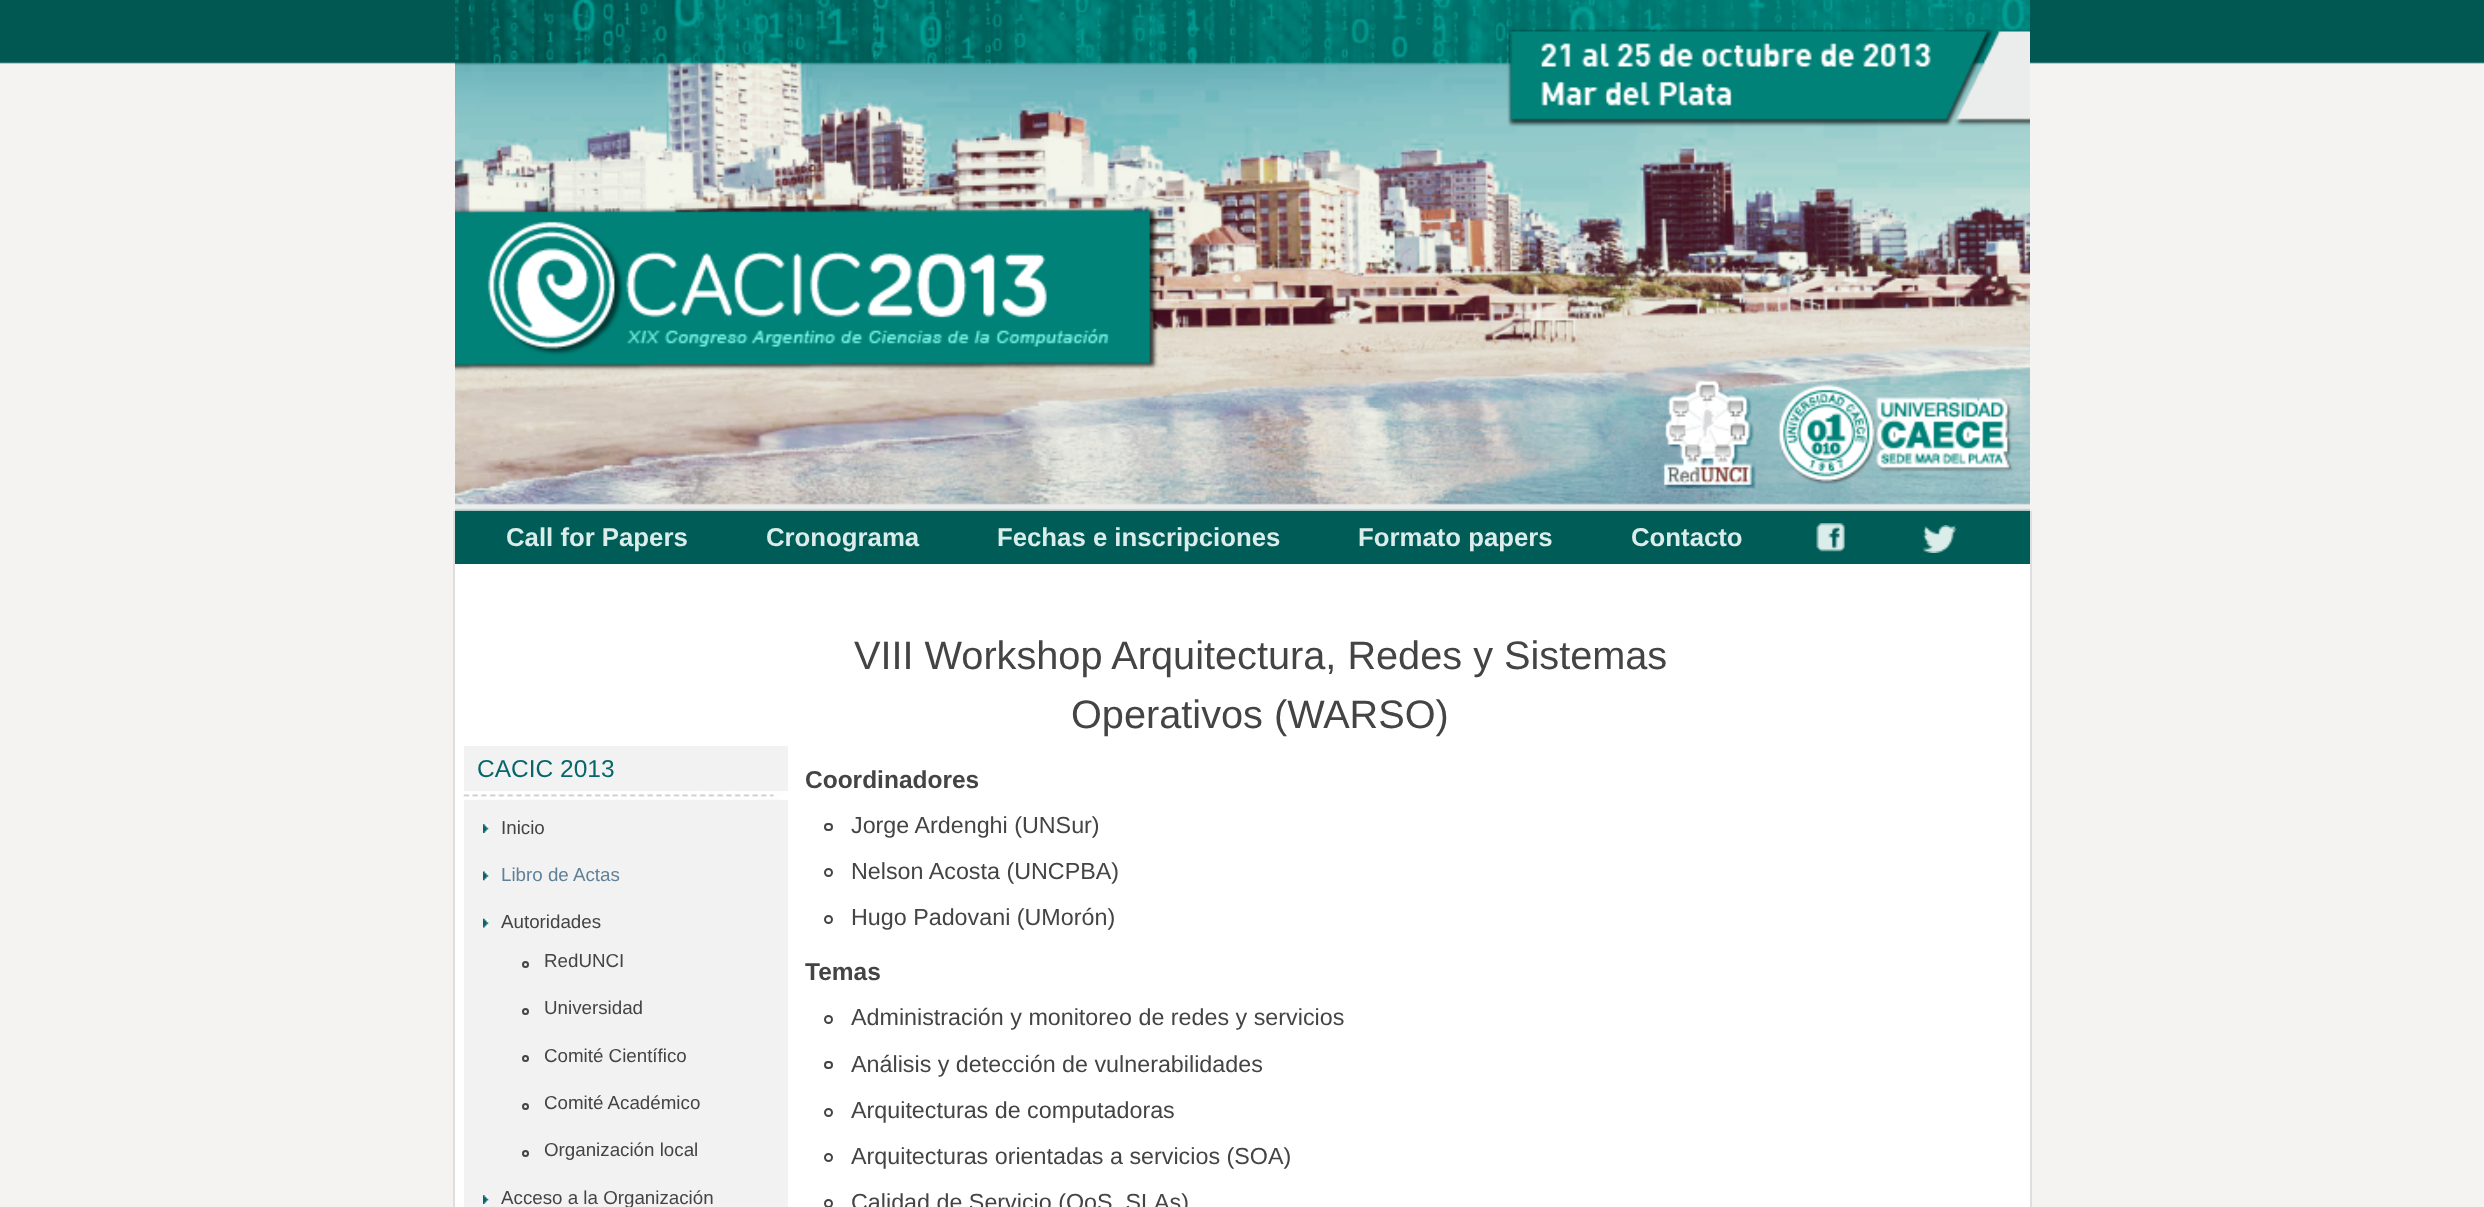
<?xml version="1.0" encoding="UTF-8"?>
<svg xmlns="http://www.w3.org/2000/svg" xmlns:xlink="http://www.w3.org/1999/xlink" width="2484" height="1207">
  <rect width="100%" height="100%" fill="#ffffff" />
  <image x="0" y="0" width="2484" height="511" xlink:href="image1.png" />
  <image x="455" y="0" width="1575" height="511" xlink:href="image2.png" />
  <rect y="511" width="2484" height="696" fill="#f5f2f2" />
  <rect x="2030" y="511" width="2" height="696" fill="#dedede" />
  <rect x="453" y="511" width="2" height="696" fill="#dedede" />
  <rect x="455" y="511" width="1575" height="53" fill="#005c57" />
  <image x="1816" y="523" width="29" height="29" xlink:href="image3.png" />
  <image x="1923" y="525" width="34" height="28" xlink:href="image4.png" />
  <rect x="455" y="564" width="1575" height="643" fill="#ffffff" />
  <rect x="464" y="746" width="324" height="461" fill="#f2f2f2" />
  <image x="463" y="791" width="325" height="9" xlink:href="image5.png" />
  <image x="483" y="824" width="6" height="9" xlink:href="image6.png" />
  <image x="483" y="871" width="6" height="10" xlink:href="image7.png" />
  <image x="483" y="918" width="6" height="10" xlink:href="image8.png" />
  <circle cx="525.5" cy="964.5" r="2.5" fill="none" stroke="#444444" stroke-width="2" />
  <circle cx="525.5" cy="1011.5" r="2.5" fill="none" stroke="#444444" stroke-width="2" />
  <circle cx="525.5" cy="1058.5" r="2.5" fill="none" stroke="#444444" stroke-width="2" />
  <circle cx="525.5" cy="1106.5" r="2.5" fill="none" stroke="#444444" stroke-width="2" />
  <circle cx="525.5" cy="1153.5" r="2.5" fill="none" stroke="#444444" stroke-width="2" />
  <image x="483" y="1195" width="6" height="9" xlink:href="image6.png" />
  <rect x="825" y="824" width="7" height="6" rx="3" fill="none" stroke="#444444" stroke-width="2" />
  <circle cx="828.5" cy="872.5" r="3.5" fill="none" stroke="#444444" stroke-width="2" />
  <circle cx="828.5" cy="919.5" r="3.5" fill="none" stroke="#444444" stroke-width="2" />
  <circle cx="828.5" cy="1019.5" r="3.5" fill="none" stroke="#444444" stroke-width="2" />
  <rect x="825" y="1062" width="7" height="6" rx="3" fill="none" stroke="#444444" stroke-width="2" />
  <circle cx="828.5" cy="1112.5" r="3.5" fill="none" stroke="#444444" stroke-width="2" />
  <circle cx="828.5" cy="1157.5" r="3.5" fill="none" stroke="#444444" stroke-width="2" />
  <circle cx="828.5" cy="1203.5" r="3.5" fill="none" stroke="#444444" stroke-width="2" />
  <text x="506" y="546" style="font-family: Liberation Sans; font-size: 25.75px; font-weight: bold; fill: #daedeb">Call for Papers</text>
  <text x="766" y="546" style="font-family: Liberation Sans; font-size: 25.75px; font-weight: bold; fill: #daedeb">Cronograma</text>
  <text x="997" y="546" style="font-family: Liberation Sans; font-size: 25.75px; font-weight: bold; fill: #daedeb">Fechas e inscripciones</text>
  <text x="1358" y="546" style="font-family: Liberation Sans; font-size: 25.75px; font-weight: bold; fill: #daedeb">Formato papers</text>
  <text x="1631" y="546" style="font-family: Liberation Sans; font-size: 25.75px; font-weight: bold; fill: #daedeb">Contacto</text>
  <text x="477" y="777" style="font-family: Liberation Sans; font-size: 24.5px; fill: #07666c">CACIC 2013</text>
  <text x="501" y="834" style="font-family: Liberation Sans; font-size: 18.75px; fill: #444444">Inicio</text>
  <text x="501" y="881" style="font-family: Liberation Sans; font-size: 18.75px; fill: #608198">Libro de Actas</text>
  <text x="501" y="928" style="font-family: Liberation Sans; font-size: 18.75px; fill: #444444">Autoridades</text>
  <text x="544" y="967" style="font-family: Liberation Sans; font-size: 18.75px; fill: #444444">RedUNCI</text>
  <text x="544" y="1014" style="font-family: Liberation Sans; font-size: 18.75px; fill: #444444">Universidad</text>
  <text x="544" y="1062" style="font-family: Liberation Sans; font-size: 18.75px; fill: #444444">Comité Científico</text>
  <text x="544" y="1109" style="font-family: Liberation Sans; font-size: 18.75px; fill: #444444">Comité Académico</text>
  <text x="544" y="1156" style="font-family: Liberation Sans; font-size: 18.75px; fill: #444444">Organización local</text>
  <text x="501" y="1204" style="font-family: Liberation Sans; font-size: 18.75px; fill: #444444">Acceso a la Organización</text>
  <text x="854" y="669" style="font-family: Liberation Sans; font-size: 39.7px; fill: #444444">VIII Workshop Arquitectura, Redes y Sistemas</text>
  <text x="1071" y="728" style="font-family: Liberation Sans; font-size: 39.7px; fill: #444444">Operativos (WARSO)</text>
  <text x="805" y="788" style="font-family: Liberation Sans; font-size: 24.5px; font-weight: bold; fill: #444444">Coordinadores</text>
  <text x="851" y="833" style="font-family: Liberation Sans; font-size: 23.3px; fill: #444444">Jorge Ardenghi (UNSur)</text>
  <text x="851" y="879" style="font-family: Liberation Sans; font-size: 23.3px; fill: #444444">Nelson Acosta (UNCPBA)</text>
  <text x="851" y="925" style="font-family: Liberation Sans; font-size: 23.3px; fill: #444444">Hugo Padovani (UMorón)</text>
  <text x="805" y="980" style="font-family: Liberation Sans; font-size: 24.5px; font-weight: bold; fill: #444444">Temas</text>
  <text x="851" y="1025" style="font-family: Liberation Sans; font-size: 23.3px; fill: #444444">Administración y monitoreo de redes y servicios</text>
  <text x="851" y="1072" style="font-family: Liberation Sans; font-size: 23.3px; fill: #444444">Análisis y detección de vulnerabilidades</text>
  <text x="851" y="1118" style="font-family: Liberation Sans; font-size: 23.3px; fill: #444444">Arquitecturas de computadoras</text>
  <text x="851" y="1164" style="font-family: Liberation Sans; font-size: 23.3px; fill: #444444">Arquitecturas orientadas a servicios (SOA)</text>
  <text x="851" y="1210" style="font-family: Liberation Sans; font-size: 23.3px; fill: #444444">Calidad de Servicio (QoS, SLAs)</text>
</svg>
